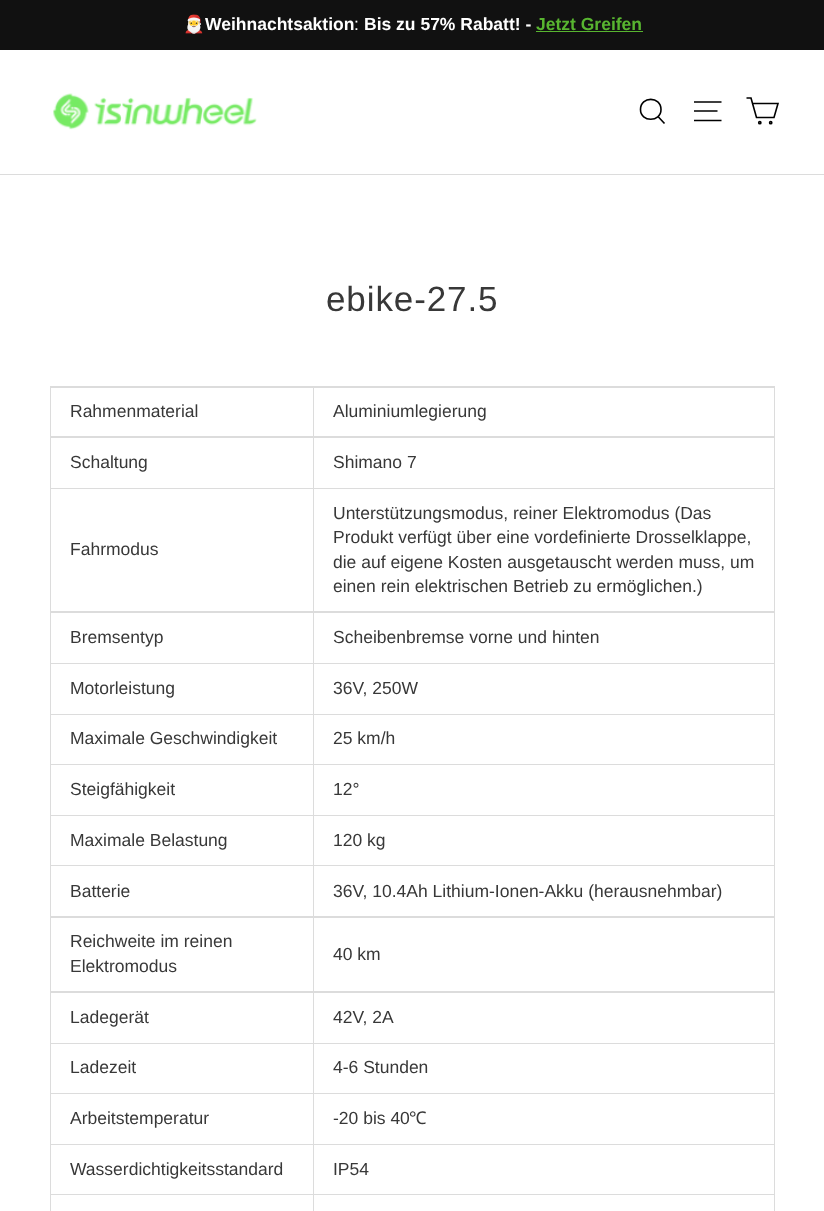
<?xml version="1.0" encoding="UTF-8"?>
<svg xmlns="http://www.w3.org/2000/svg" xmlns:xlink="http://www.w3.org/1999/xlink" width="824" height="1211">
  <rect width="100%" height="100%" fill="#ffffff" />
  <rect width="824" height="50" fill="#111111" />
  <rect x="536" y="31" width="107" height="1" fill="#58b530" />
  <rect y="174" width="824" height="1" fill="#dcdcdc" />
  <image x="53" y="93" width="204" height="37" xlink:href="image1.png" />
  <path d="M 661 109.5 c 0 13 -20.5 13 -20.5 0 c 0 -13.5 20.5 -13.5 20.5 0 z m 3.5 14 l -6.5 -7" fill="none" stroke="#000000" stroke-width="1.6" />
  <path d="M 694 102 h 27.5 m -27.5 9 h 23.5 m -23.5 9.5 h 27.5" fill="none" stroke="#000000" stroke-width="1.6" />
  <path d="M 752.5 103.5 h 25.5 l -4 14 h -17.5 l -5.5 -19.5 h -4.5" fill="none" stroke="#000000" stroke-width="1.6" />
  <circle cx="759.8" cy="122.7" r="1.1" fill="none" stroke="#000000" stroke-width="1.6" />
  <circle cx="770.7" cy="122.7" r="1.1" fill="none" stroke="#000000" stroke-width="1.6" />
  <rect x="50" y="386" width="725" height="825" fill="#dcdcdc" />
  <rect x="51" y="388" width="262" height="48" fill="#ffffff" />
  <rect x="314" y="388" width="460" height="48" fill="#ffffff" />
  <rect x="51" y="438" width="262" height="50" fill="#ffffff" />
  <rect x="314" y="438" width="460" height="50" fill="#ffffff" />
  <rect x="51" y="489" width="262" height="122" fill="#ffffff" />
  <rect x="314" y="489" width="460" height="122" fill="#ffffff" />
  <rect x="51" y="613" width="262" height="50" fill="#ffffff" />
  <rect x="314" y="613" width="460" height="50" fill="#ffffff" />
  <rect x="51" y="664" width="262" height="50" fill="#ffffff" />
  <rect x="314" y="664" width="460" height="50" fill="#ffffff" />
  <rect x="51" y="715" width="262" height="49" fill="#ffffff" />
  <rect x="314" y="715" width="460" height="49" fill="#ffffff" />
  <rect x="51" y="765" width="262" height="50" fill="#ffffff" />
  <rect x="314" y="765" width="460" height="50" fill="#ffffff" />
  <rect x="51" y="816" width="262" height="49" fill="#ffffff" />
  <rect x="314" y="816" width="460" height="49" fill="#ffffff" />
  <rect x="51" y="866" width="262" height="50" fill="#ffffff" />
  <rect x="314" y="866" width="460" height="50" fill="#ffffff" />
  <rect x="51" y="918" width="262" height="73" fill="#ffffff" />
  <rect x="314" y="918" width="460" height="73" fill="#ffffff" />
  <rect x="51" y="993" width="262" height="50" fill="#ffffff" />
  <rect x="314" y="993" width="460" height="50" fill="#ffffff" />
  <rect x="51" y="1044" width="262" height="49" fill="#ffffff" />
  <rect x="314" y="1044" width="460" height="49" fill="#ffffff" />
  <rect x="51" y="1094" width="262" height="50" fill="#ffffff" />
  <rect x="314" y="1094" width="460" height="50" fill="#ffffff" />
  <rect x="51" y="1145" width="262" height="49" fill="#ffffff" />
  <rect x="314" y="1145" width="460" height="49" fill="#ffffff" />
  <rect x="51" y="1195" width="262" height="16" fill="#ffffff" />
  <rect x="314" y="1195" width="460" height="16" fill="#ffffff" />
  <text x="183" y="30" style="font-family: Noto Color Emoji; font-size: 17.5px; fill: #ffffff">🎅</text>
  <text x="205" y="30" style="font-family: Liberation Sans; font-size: 17.5px; font-weight: bold; fill: #ffffff">Weihnachtsaktion</text>
  <text x="354" y="30" style="font-family: Liberation Sans; font-size: 17.5px; fill: #ffffff">:</text>
  <text x="364" y="30" style="font-family: Liberation Sans; font-size: 17.5px; font-weight: bold; fill: #ffffff">Bis zu 57% Rabatt! -</text>
  <text x="536" y="30" style="font-family: Liberation Sans; font-size: 17.5px; font-weight: bold; fill: #58b530">Jetzt Greifen</text>
  <text x="326" y="311" style="font-family: Liberation Sans; font-size: 35px; letter-spacing: 0.9px; fill: #383838">ebike-27.5</text>
  <text x="70" y="417" style="font-family: Liberation Sans; font-size: 17.5px; fill: #383838">Rahmenmaterial</text>
  <text x="333" y="417" style="font-family: Liberation Sans; font-size: 17.5px; fill: #383838">Aluminiumlegierung</text>
  <text x="70" y="468" style="font-family: Liberation Sans; font-size: 17.5px; fill: #383838">Schaltung</text>
  <text x="333" y="468" style="font-family: Liberation Sans; font-size: 17.5px; fill: #383838">Shimano 7</text>
  <text x="70" y="555" style="font-family: Liberation Sans; font-size: 17.5px; fill: #383838">Fahrmodus</text>
  <text x="333" y="519" style="font-family: Liberation Sans; font-size: 17.5px; fill: #383838">Unterstützungsmodus, reiner Elektromodus (Das</text>
  <text x="333" y="543" style="font-family: Liberation Sans; font-size: 17.5px; fill: #383838">Produkt verfügt über eine vordefinierte Drosselklappe,</text>
  <text x="333" y="568" style="font-family: Liberation Sans; font-size: 17.5px; fill: #383838">die auf eigene Kosten ausgetauscht werden muss, um</text>
  <text x="333" y="592" style="font-family: Liberation Sans; font-size: 17.5px; fill: #383838">einen rein elektrischen Betrieb zu ermöglichen.)</text>
  <text x="70" y="643" style="font-family: Liberation Sans; font-size: 17.5px; fill: #383838">Bremsentyp</text>
  <text x="333" y="643" style="font-family: Liberation Sans; font-size: 17.5px; fill: #383838">Scheibenbremse vorne und hinten</text>
  <text x="70" y="694" style="font-family: Liberation Sans; font-size: 17.5px; fill: #383838">Motorleistung</text>
  <text x="333" y="694" style="font-family: Liberation Sans; font-size: 17.5px; fill: #383838">36V, 250W</text>
  <text x="70" y="744" style="font-family: Liberation Sans; font-size: 17.5px; fill: #383838">Maximale Geschwindigkeit</text>
  <text x="333" y="744" style="font-family: Liberation Sans; font-size: 17.5px; fill: #383838">25 km/h</text>
  <text x="70" y="795" style="font-family: Liberation Sans; font-size: 17.5px; fill: #383838">Steigfähigkeit</text>
  <text x="333" y="795" style="font-family: Liberation Sans; font-size: 17.5px; fill: #383838">12°</text>
  <text x="70" y="846" style="font-family: Liberation Sans; font-size: 17.5px; fill: #383838">Maximale Belastung</text>
  <text x="333" y="846" style="font-family: Liberation Sans; font-size: 17.5px; fill: #383838">120 kg</text>
  <text x="70" y="897" style="font-family: Liberation Sans; font-size: 17.5px; fill: #383838">Batterie</text>
  <text x="333" y="897" style="font-family: Liberation Sans; font-size: 17.5px; fill: #383838">36V, 10.4Ah Lithium-Ionen-Akku (herausnehmbar)</text>
  <text x="70" y="947" style="font-family: Liberation Sans; font-size: 17.5px; fill: #383838">Reichweite im reinen</text>
  <text x="70" y="972" style="font-family: Liberation Sans; font-size: 17.5px; fill: #383838">Elektromodus</text>
  <text x="333" y="960" style="font-family: Liberation Sans; font-size: 17.5px; fill: #383838">40 km</text>
  <text x="70" y="1023" style="font-family: Liberation Sans; font-size: 17.5px; fill: #383838">Ladegerät</text>
  <text x="333" y="1023" style="font-family: Liberation Sans; font-size: 17.5px; fill: #383838">42V, 2A</text>
  <text x="70" y="1073" style="font-family: Liberation Sans; font-size: 17.5px; fill: #383838">Ladezeit</text>
  <text x="333" y="1073" style="font-family: Liberation Sans; font-size: 17.5px; fill: #383838">4-6 Stunden</text>
  <text x="70" y="1124" style="font-family: Liberation Sans; font-size: 17.5px; fill: #383838">Arbeitstemperatur</text>
  <text x="333" y="1124" style="font-family: Liberation Sans; font-size: 17.5px; fill: #383838">-20 bis 40</text>
  <text x="409" y="1124" style="font-family: Noto Sans; font-size: 17.5px; fill: #383838">℃</text>
  <text x="70" y="1175" style="font-family: Liberation Sans; font-size: 17.5px; fill: #383838">Wasserdichtigkeitsstandard</text>
  <text x="333" y="1175" style="font-family: Liberation Sans; font-size: 17.5px; fill: #383838">IP54</text>
</svg>
